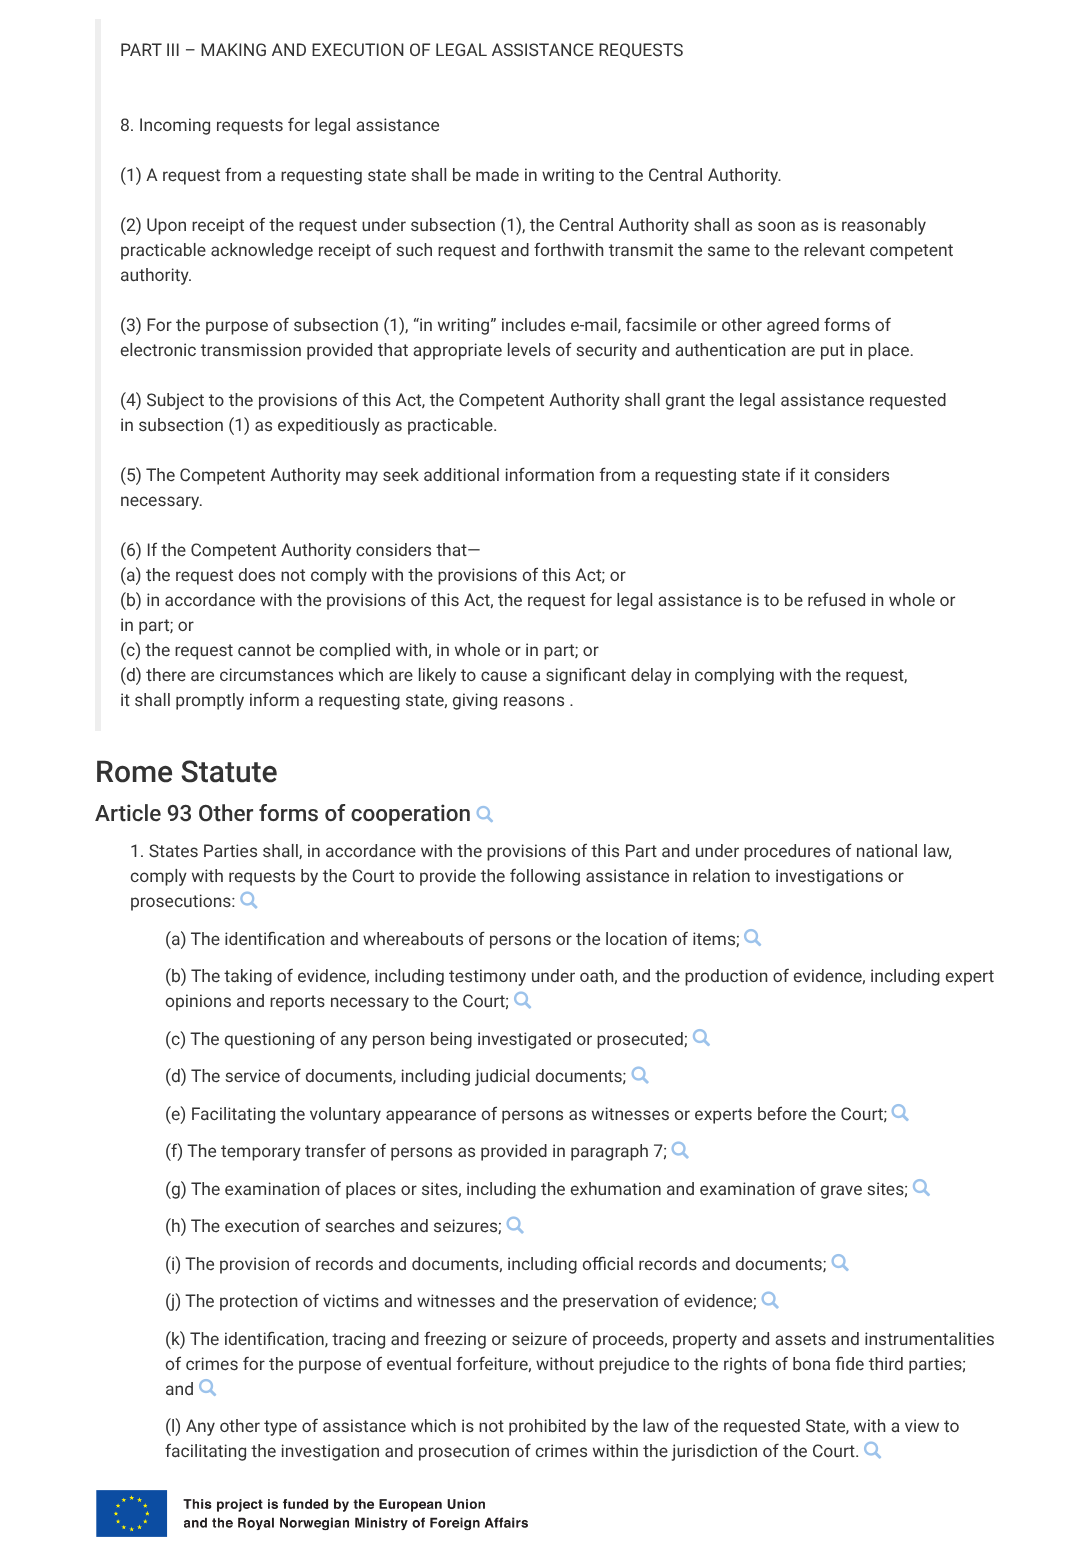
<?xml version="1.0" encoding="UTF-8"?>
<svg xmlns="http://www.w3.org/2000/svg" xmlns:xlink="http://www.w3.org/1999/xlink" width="1090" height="1551">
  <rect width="100%" height="100%" fill="#ffffff" />
  <rect x="95" y="19" width="6" height="712" fill="#eeeeee" />
  <image x="476" y="805" width="18" height="18" xlink:href="image1.png" />
  <image x="240" y="891" width="18" height="18" xlink:href="image2.png" />
  <image x="743" y="928" width="19" height="19" xlink:href="image3.png" />
  <image x="513" y="991" width="19" height="18" xlink:href="image4.png" />
  <image x="692" y="1028" width="19" height="19" xlink:href="image5.png" />
  <image x="631" y="1066" width="18" height="18" xlink:href="image6.png" />
  <image x="891" y="1103" width="18" height="19" xlink:href="image7.png" />
  <image x="671" y="1141" width="18" height="18" xlink:href="image6.png" />
  <image x="912" y="1178" width="19" height="19" xlink:href="image5.png" />
  <image x="506" y="1216" width="18" height="18" xlink:href="image6.png" />
  <image x="831" y="1253" width="18" height="19" xlink:href="image7.png" />
  <image x="761" y="1291" width="18" height="18" xlink:href="image6.png" />
  <image x="198" y="1378" width="19" height="19" xlink:href="image3.png" />
  <image x="863" y="1441" width="19" height="18" xlink:href="image4.png" />
  <image x="96" y="1490" width="432" height="47" xlink:href="image8.png" />
  <text x="120" y="56" style="font-family: Roboto; font-size: 17.5px; fill: #333333">PART III – MAKING AND EXECUTION OF LEGAL ASSISTANCE REQUESTS</text>
  <text x="120" y="131" style="font-family: Roboto; font-size: 17.5px; fill: #333333">8. Incoming requests for legal assistance</text>
  <text x="120" y="181" style="font-family: Roboto; font-size: 17.5px; fill: #333333">(1) A request from a requesting state shall be made in writing to the Central Authority.</text>
  <text x="120" y="231" style="font-family: Roboto; font-size: 17.5px; fill: #333333">(2) Upon receipt of the request under subsection (1), the Central Authority shall as soon as is reasonably</text>
  <text x="120" y="256" style="font-family: Roboto; font-size: 17.5px; fill: #333333">practicable acknowledge receipt of such request and forthwith transmit the same to the relevant competent</text>
  <text x="120" y="281" style="font-family: Roboto; font-size: 17.5px; fill: #333333">authority.</text>
  <text x="120" y="331" style="font-family: Roboto; font-size: 17.5px; fill: #333333">(3) For the purpose of subsection (1), “in writing” includes e-mail, facsimile or other agreed forms of</text>
  <text x="120" y="356" style="font-family: Roboto; font-size: 17.5px; fill: #333333">electronic transmission provided that appropriate levels of security and authentication are put in place.</text>
  <text x="120" y="406" style="font-family: Roboto; font-size: 17.5px; fill: #333333">(4) Subject to the provisions of this Act, the Competent Authority shall grant the legal assistance requested</text>
  <text x="120" y="431" style="font-family: Roboto; font-size: 17.5px; fill: #333333">in subsection (1) as expeditiously as practicable.</text>
  <text x="120" y="481" style="font-family: Roboto; font-size: 17.5px; fill: #333333">(5) The Competent Authority may seek additional information from a requesting state if it considers</text>
  <text x="120" y="506" style="font-family: Roboto; font-size: 17.5px; fill: #333333">necessary.</text>
  <text x="120" y="556" style="font-family: Roboto; font-size: 17.5px; fill: #333333">(6) If the Competent Authority considers that—</text>
  <text x="120" y="581" style="font-family: Roboto; font-size: 17.5px; fill: #333333">(a) the request does not comply with the provisions of this Act; or</text>
  <text x="120" y="606" style="font-family: Roboto; font-size: 17.5px; fill: #333333">(b) in accordance with the provisions of this Act, the request for legal assistance is to be refused in whole or</text>
  <text x="120" y="631" style="font-family: Roboto; font-size: 17.5px; fill: #333333">in part; or</text>
  <text x="120" y="656" style="font-family: Roboto; font-size: 17.5px; fill: #333333">(c) the request cannot be complied with, in whole or in part; or</text>
  <text x="120" y="681" style="font-family: Roboto; font-size: 17.5px; fill: #333333">(d) there are circumstances which are likely to cause a significant delay in complying with the request,</text>
  <text x="120" y="706" style="font-family: Roboto; font-size: 17.5px; fill: #333333">it shall promptly inform a requesting state, giving reasons .</text>
  <text x="95" y="782" style="font-family: Roboto; font-size: 30px; font-weight: 500; fill: #333333">Rome Statute</text>
  <text x="95" y="821" style="font-family: Roboto; font-size: 22.5px; font-weight: 500; fill: #333333">Article 93 Other forms of cooperation</text>
  <text x="130" y="857" style="font-family: Roboto; font-size: 17.5px; fill: #333333">1. States Parties shall, in accordance with the provisions of this Part and under procedures of national law,</text>
  <text x="130" y="882" style="font-family: Roboto; font-size: 17.5px; fill: #333333">comply with requests by the Court to provide the following assistance in relation to investigations or</text>
  <text x="130" y="907" style="font-family: Roboto; font-size: 17.5px; fill: #333333">prosecutions:</text>
  <text x="165" y="945" style="font-family: Roboto; font-size: 17.5px; fill: #333333">(a) The identification and whereabouts of persons or the location of items;</text>
  <text x="165" y="982" style="font-family: Roboto; font-size: 17.5px; fill: #333333">(b) The taking of evidence, including testimony under oath, and the production of evidence, including expert</text>
  <text x="165" y="1007" style="font-family: Roboto; font-size: 17.5px; fill: #333333">opinions and reports necessary to the Court;</text>
  <text x="165" y="1045" style="font-family: Roboto; font-size: 17.5px; fill: #333333">(c) The questioning of any person being investigated or prosecuted;</text>
  <text x="165" y="1082" style="font-family: Roboto; font-size: 17.5px; fill: #333333">(d) The service of documents, including judicial documents;</text>
  <text x="165" y="1120" style="font-family: Roboto; font-size: 17.5px; fill: #333333">(e) Facilitating the voluntary appearance of persons as witnesses or experts before the Court;</text>
  <text x="165" y="1157" style="font-family: Roboto; font-size: 17.5px; fill: #333333">(f) The temporary transfer of persons as provided in paragraph 7;</text>
  <text x="165" y="1195" style="font-family: Roboto; font-size: 17.5px; fill: #333333">(g) The examination of places or sites, including the exhumation and examination of grave sites;</text>
  <text x="165" y="1232" style="font-family: Roboto; font-size: 17.5px; fill: #333333">(h) The execution of searches and seizures;</text>
  <text x="165" y="1270" style="font-family: Roboto; font-size: 17.5px; fill: #333333">(i) The provision of records and documents, including official records and documents;</text>
  <text x="165" y="1307" style="font-family: Roboto; font-size: 17.5px; fill: #333333">(j) The protection of victims and witnesses and the preservation of evidence;</text>
  <text x="165" y="1345" style="font-family: Roboto; font-size: 17.5px; fill: #333333">(k) The identification, tracing and freezing or seizure of proceeds, property and assets and instrumentalities</text>
  <text x="165" y="1370" style="font-family: Roboto; font-size: 17.5px; fill: #333333">of crimes for the purpose of eventual forfeiture, without prejudice to the rights of bona fide third parties;</text>
  <text x="165" y="1395" style="font-family: Roboto; font-size: 17.5px; fill: #333333">and</text>
  <text x="165" y="1432" style="font-family: Roboto; font-size: 17.5px; fill: #333333">(l) Any other type of assistance which is not prohibited by the law of the requested State, with a view to</text>
  <text x="165" y="1457" style="font-family: Roboto; font-size: 17.5px; fill: #333333">facilitating the investigation and prosecution of crimes within the jurisdiction of the Court.</text>
</svg>
